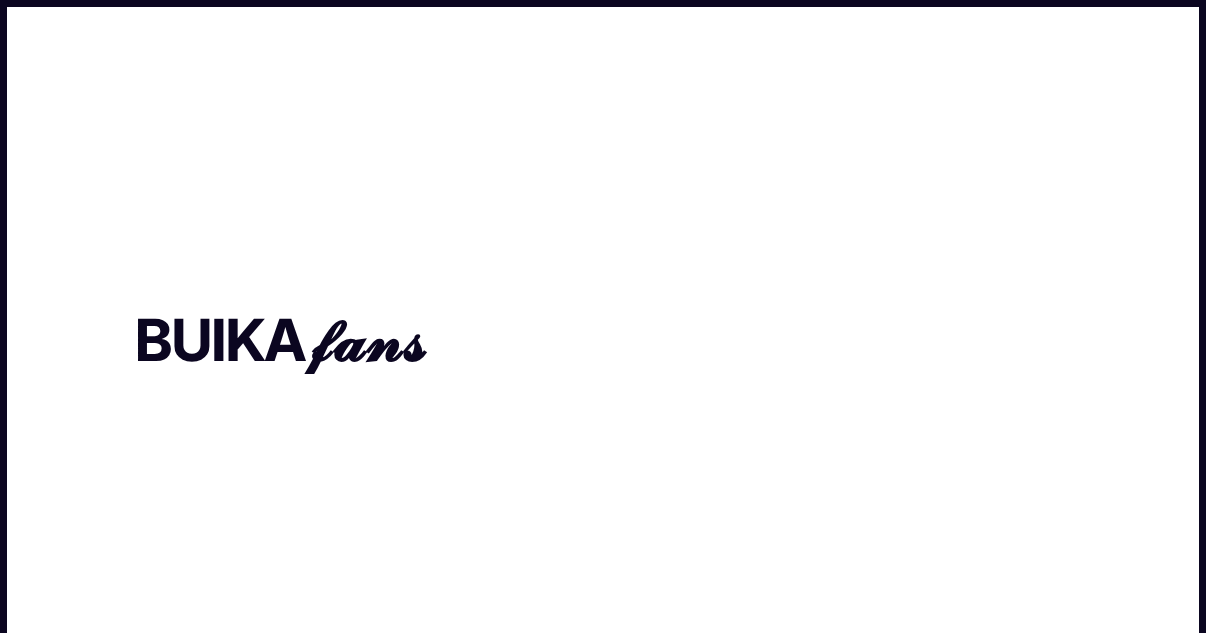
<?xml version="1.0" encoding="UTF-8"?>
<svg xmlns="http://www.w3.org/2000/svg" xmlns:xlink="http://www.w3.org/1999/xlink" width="1206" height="633">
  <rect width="100%" height="100%" fill="#ffffff" />
  <rect x="3.5" y="3.5" width="1199" height="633" fill="none" stroke="#0b0620" stroke-width="7" />
  <text x="135" y="361" style="font-family: Inter; font-size: 58px; font-weight: bold; letter-spacing: -1px; fill: #0b0620">BUIKA</text>
  <text x="305" y="361" style="font-family: FreeSerif; font-size: 58px; font-weight: bold; letter-spacing: -1px; fill: #0b0620">𝓯𝓪𝓷𝓼</text>
</svg>
